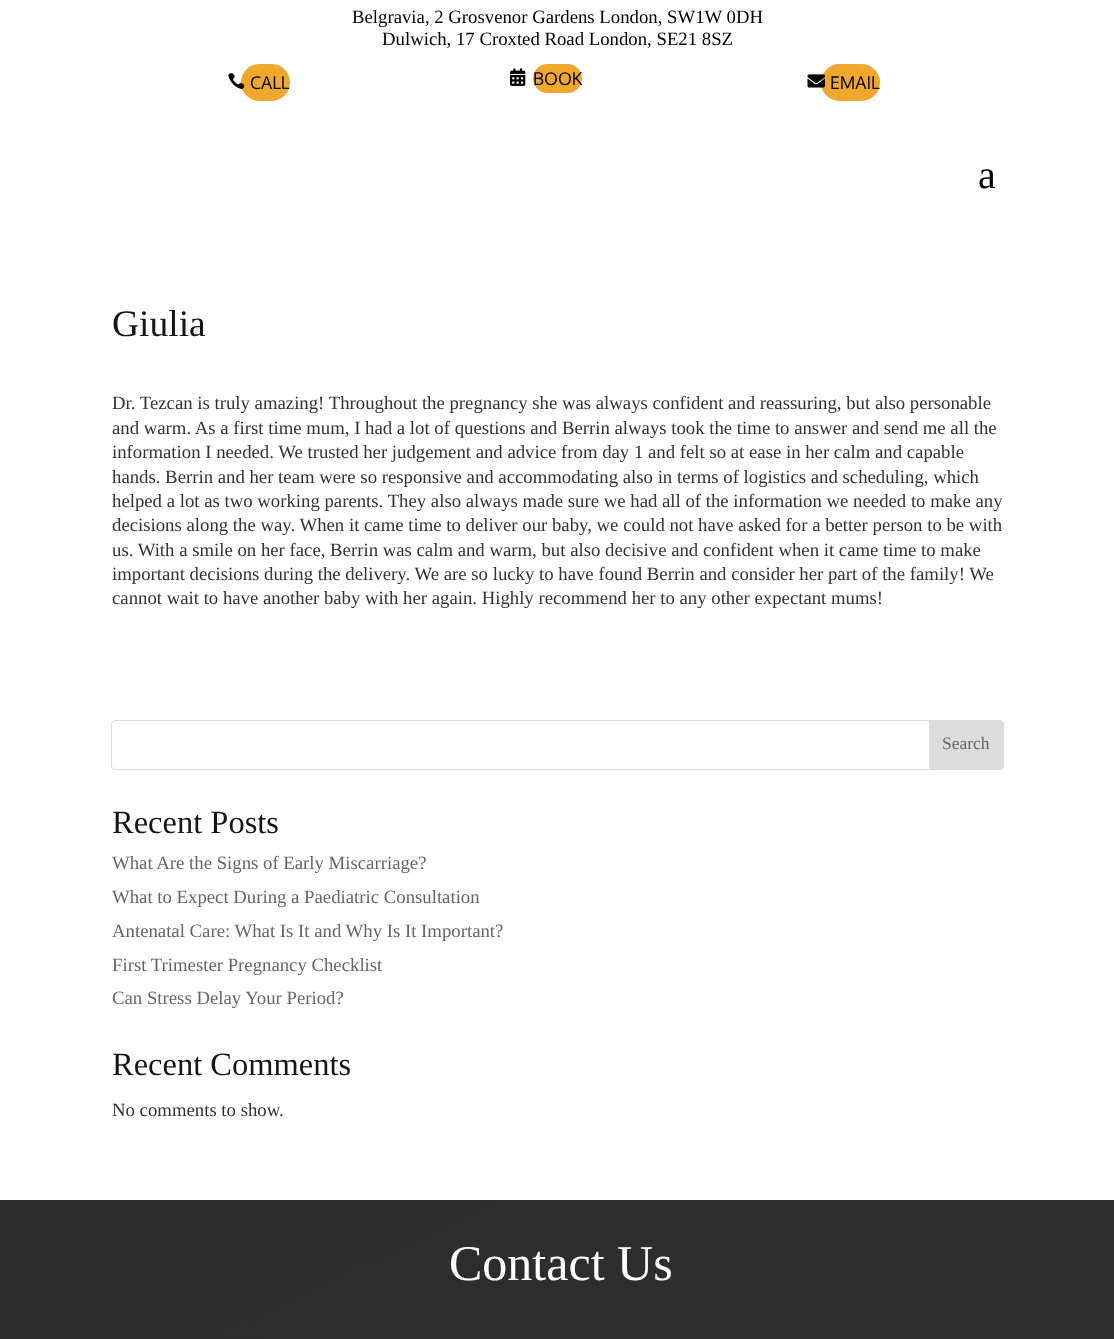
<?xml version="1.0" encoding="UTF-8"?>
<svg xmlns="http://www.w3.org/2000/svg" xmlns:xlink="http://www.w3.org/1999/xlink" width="1114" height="1339">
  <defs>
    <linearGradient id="g1" gradientUnits="userSpaceOnUse" x1="-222" y1="1308" x2="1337" y2="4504"><stop offset="0" stop-color="#2b2b2b" /><stop offset="1" stop-color="#444444" /></linearGradient>
  </defs>
  <rect width="100%" height="100%" fill="#ffffff" />
  <rect x="239.5" y="62.5" width="52" height="40" rx="20" fill="#efa72c" stroke="#ffffff" stroke-width="3" />
  <image x="228" y="73" width="17" height="17" xlink:href="image1.png" />
  <rect x="531.5" y="62.5" width="52" height="32" rx="16" fill="#efa72c" stroke="#ffffff" stroke-width="3" />
  <image x="510" y="68" width="16" height="18" xlink:href="image2.png" />
  <rect x="819.5" y="62.5" width="62" height="40" rx="20" fill="#efa72c" stroke="#ffffff" stroke-width="3" />
  <image x="807" y="74" width="18" height="14" xlink:href="image3.png" />
  <rect x="111.5" y="720.5" width="892" height="49" rx="3.5" fill="none" stroke="#dddddd" />
  <path d="M 929.5 720.5 h 70.5 c 2 0 3.5 1.5 3.5 3.5 v 42 c 0 2 -1.5 3.5 -3.5 3.5 h -70.5 z" fill="#dddddd" stroke="#dddddd" />
  <rect y="1200" width="1114" height="139" fill="url(#g1)" />
  <text x="352" y="23" style="font-family: Liberation Serif; font-size: 18.75px; fill: #000000">Belgravia, 2 Grosvenor Gardens London, SW1W 0DH</text>
  <text x="382" y="45" style="font-family: Liberation Serif; font-size: 18.75px; fill: #000000">Dulwich, 17 Croxted Road London, SE21 8SZ</text>
  <text x="250" y="89" style="font-family: Oxygen; font-size: 17.5px; fill: #000000">CALL</text>
  <text x="533" y="85" style="font-family: Oxygen; font-size: 17.5px; fill: #000000">BOOK</text>
  <text x="830" y="89" style="font-family: Oxygen; font-size: 17.5px; fill: #000000">EMAIL</text>
  <text x="978" y="188" style="font-family: Liberation Serif; font-size: 40px; fill: #000000">a</text>
  <text x="112" y="336" style="font-family: Liberation Serif; font-size: 37.5px; fill: #161616">Giulia</text>
  <text x="112" y="409" style="font-family: Liberation Serif; font-size: 18.75px; fill: #333333">Dr. Tezcan is truly amazing! Throughout the pregnancy she was always confident and reassuring, but also personable</text>
  <text x="112" y="434" style="font-family: Liberation Serif; font-size: 18.75px; fill: #333333">and warm. As a first time mum, I had a lot of questions and Berrin always took the time to answer and send me all the</text>
  <text x="112" y="458" style="font-family: Liberation Serif; font-size: 18.75px; fill: #333333">information I needed. We trusted her judgement and advice from day 1 and felt so at ease in her calm and capable</text>
  <text x="112" y="483" style="font-family: Liberation Serif; font-size: 18.75px; fill: #333333">hands. Berrin and her team were so responsive and accommodating also in terms of logistics and scheduling, which</text>
  <text x="112" y="507" style="font-family: Liberation Serif; font-size: 18.75px; fill: #333333">helped a lot as two working parents. They also always made sure we had all of the information we needed to make any</text>
  <text x="112" y="531" style="font-family: Liberation Serif; font-size: 18.75px; fill: #333333">decisions along the way. When it came time to deliver our baby, we could not have asked for a better person to be with</text>
  <text x="112" y="556" style="font-family: Liberation Serif; font-size: 18.75px; fill: #333333">us. With a smile on her face, Berrin was calm and warm, but also decisive and confident when it came time to make</text>
  <text x="112" y="580" style="font-family: Liberation Serif; font-size: 18.75px; fill: #333333">important decisions during the delivery. We are so lucky to have found Berrin and consider her part of the family! We</text>
  <text x="112" y="604" style="font-family: Liberation Serif; font-size: 18.75px; fill: #333333">cannot wait to have another baby with her again. Highly recommend her to any other expectant mums!</text>
  <text x="942" y="749" style="font-family: Liberation Serif; font-size: 17.5px; fill: #666666">Search</text>
  <text x="112" y="833" style="font-family: Liberation Serif; font-size: 32.5px; fill: #161616">Recent Posts</text>
  <text x="112" y="869" style="font-family: Liberation Serif; font-size: 18.75px; fill: #666666">What Are the Signs of Early Miscarriage?</text>
  <text x="112" y="903" style="font-family: Liberation Serif; font-size: 18.75px; fill: #666666">What to Expect During a Paediatric Consultation</text>
  <text x="112" y="937" style="font-family: Liberation Serif; font-size: 18.75px; fill: #666666">Antenatal Care: What Is It and Why Is It Important?</text>
  <text x="112" y="971" style="font-family: Liberation Serif; font-size: 18.75px; fill: #666666">First Trimester Pregnancy Checklist</text>
  <text x="112" y="1004" style="font-family: Liberation Serif; font-size: 18.75px; fill: #666666">Can Stress Delay Your Period?</text>
  <text x="112" y="1075" style="font-family: Liberation Serif; font-size: 32.5px; fill: #161616">Recent Comments</text>
  <text x="112" y="1116" style="font-family: Liberation Serif; font-size: 18.75px; fill: #333333">No comments to show.</text>
  <text x="449" y="1280" style="font-family: Liberation Serif; font-size: 50px; fill: #ffffff">Contact Us</text>
</svg>
